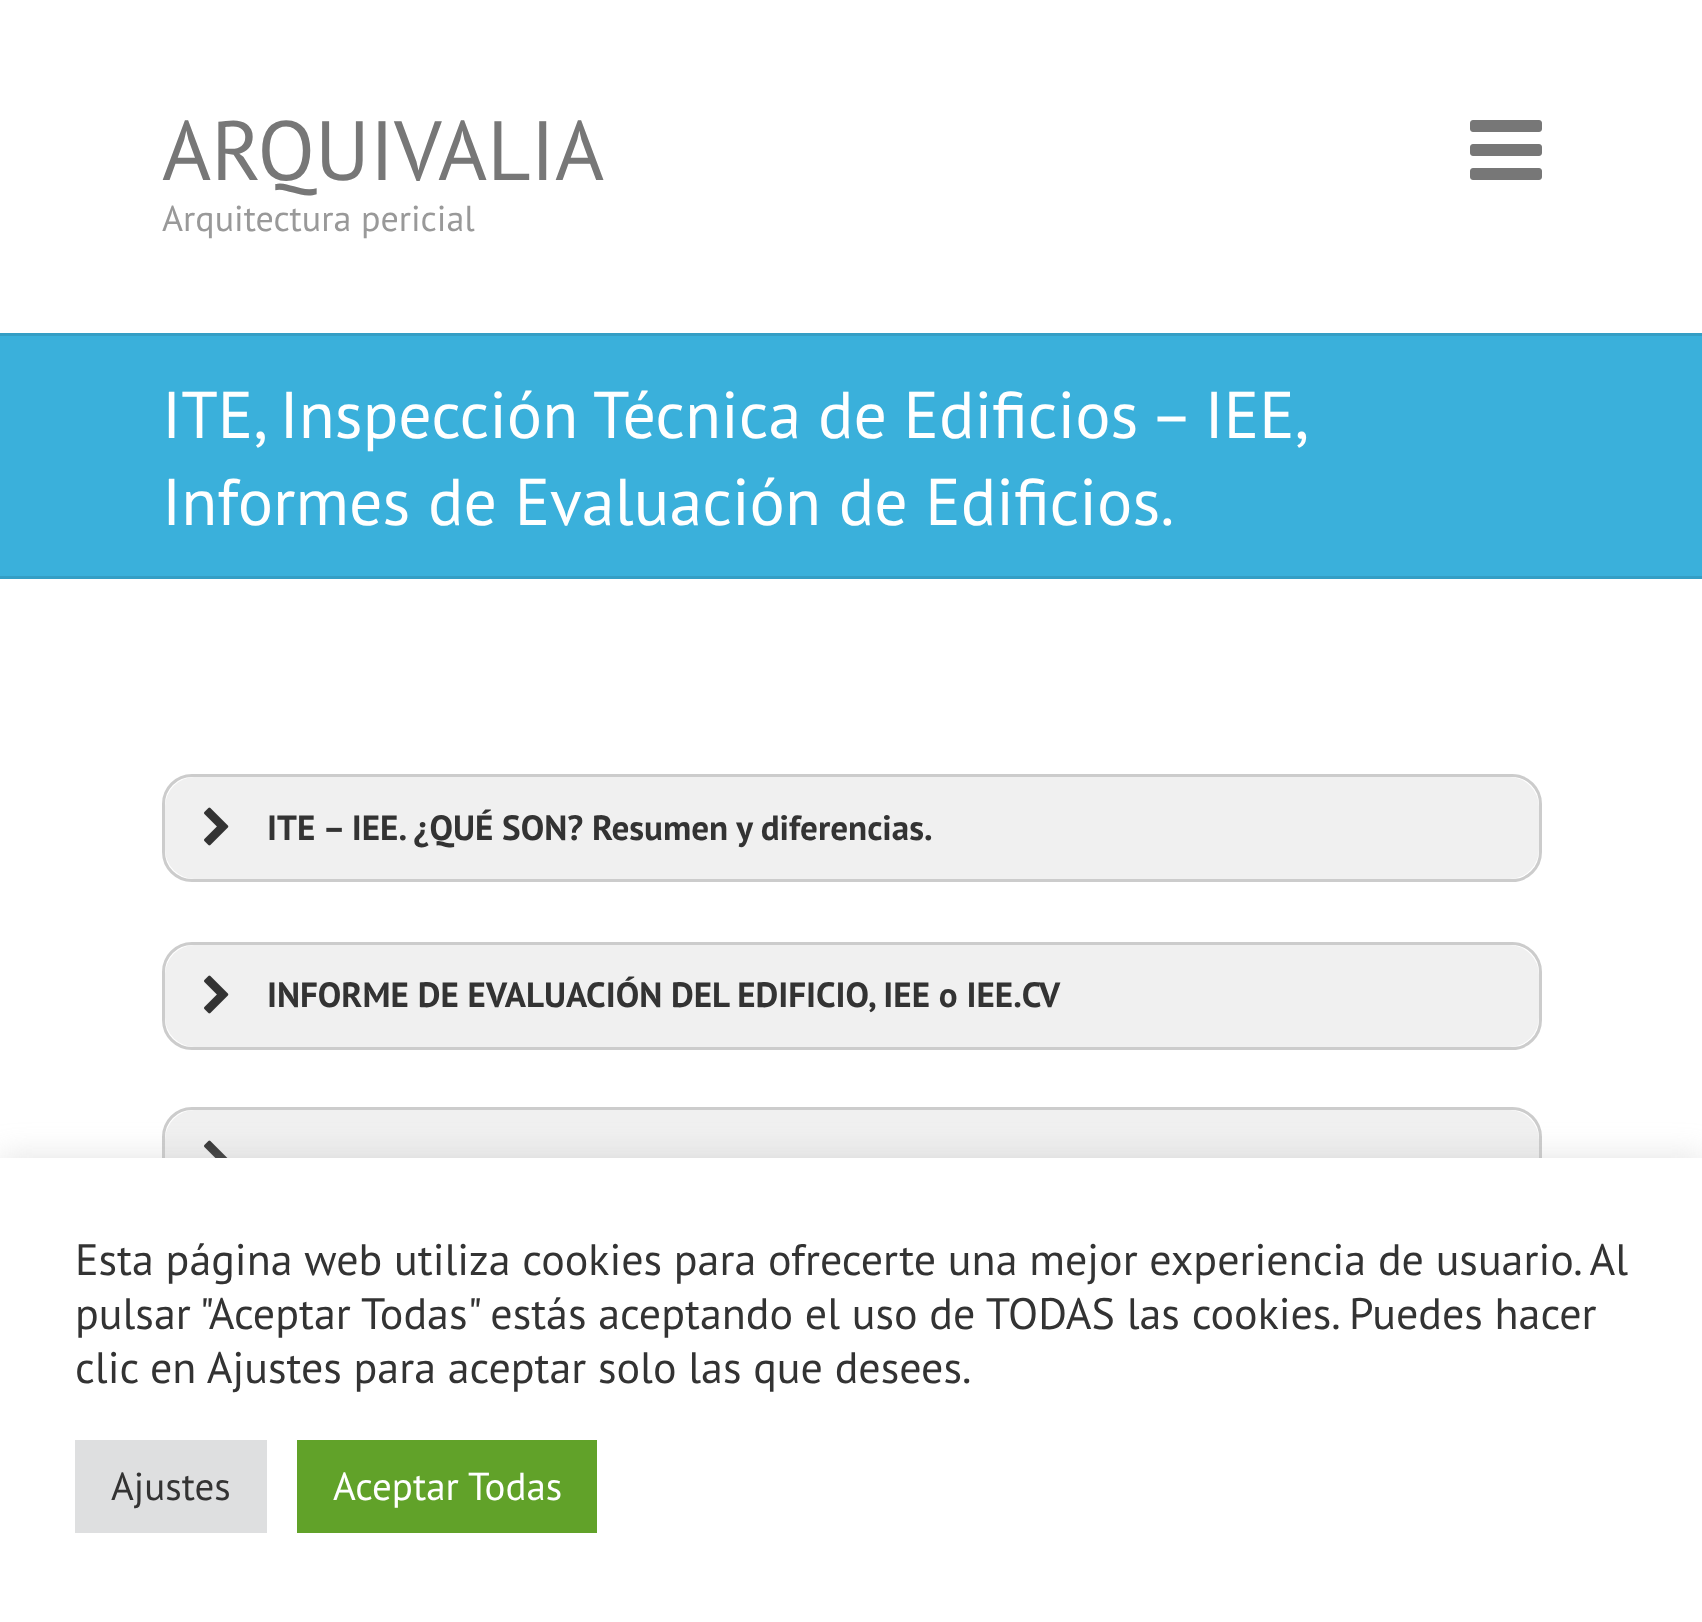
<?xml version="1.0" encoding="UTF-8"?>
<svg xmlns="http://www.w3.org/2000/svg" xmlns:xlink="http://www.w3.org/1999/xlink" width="1702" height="1622">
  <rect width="100%" height="100%" fill="#ffffff" />
  <image x="1470" y="120" width="72" height="60" xlink:href="image1.png" />
  <rect y="336" width="1702" height="240" fill="#3ab0db" />
  <rect y="333" width="1702" height="3" fill="#349ec5" />
  <rect y="576" width="1702" height="3" fill="#349ec5" />
  <rect x="163.5" y="775.5" width="1377" height="105" rx="28.5" fill="none" stroke="#cccccc" stroke-width="3" />
  <rect x="165" y="777" width="1374" height="102" rx="30" fill="#f0f0f0" />
  <image x="204" y="807" width="25" height="39" xlink:href="image2.png" />
  <rect x="163.5" y="943.5" width="1377" height="105" rx="28.5" fill="none" stroke="#cccccc" stroke-width="3" />
  <rect x="165" y="945" width="1374" height="102" rx="30" fill="#f0f0f0" />
  <image x="204" y="975" width="25" height="39" xlink:href="image2.png" />
  <rect x="163.5" y="1108.5" width="1377" height="105" rx="28.5" fill="none" stroke="#cccccc" stroke-width="3" />
  <rect x="165" y="1110" width="1374" height="102" rx="30" fill="#f0f0f0" />
  <image x="204" y="1140" width="24" height="18" xlink:href="image3.png" />
  <rect y="1155" width="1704" height="465" fill="#acabab" fill-opacity="0.3" filter="blur(15px)" />
  <rect y="1158" width="1702" height="464" fill="#ffffff" />
  <rect x="75" y="1440" width="192" height="93" fill="#dedfe0" />
  <rect x="297" y="1440" width="300" height="93" fill="#61a229" />
  <text x="162" y="180" style="font-family: PT Sans; font-size: 84px; fill: #777777">ARQUIVALIA</text>
  <text x="162" y="231" style="font-family: PT Sans; font-size: 36px; fill: #999999">Arquitectura pericial</text>
  <text x="162" y="438" word-spacing="-1" style="font-family: PT Sans; font-size: 66px; fill: #ffffff">ITE, Inspección Técnica de Edificios – IEE,</text>
  <text x="162" y="525" style="font-family: PT Sans; font-size: 66px; fill: #ffffff">Informes de Evaluación de Edificios.</text>
  <text x="267" y="840" style="font-family: PT Sans; font-size: 35.1px; font-weight: bold; fill: #333333">ITE – IEE. ¿QUÉ SON? Resumen y diferencias.</text>
  <text x="267" y="1007" style="font-family: PT Sans; font-size: 35.1px; font-weight: bold; fill: #333333">INFORME DE EVALUACIÓN DEL EDIFICIO, IEE o IEE.CV</text>
  <text x="75" y="1275" style="font-family: PT Sans; font-size: 44px; fill: #333333">Esta página web utiliza cookies para ofrecerte una mejor experiencia de usuario. Al</text>
  <text x="75" y="1329" style="font-family: PT Sans; font-size: 44px; fill: #333333">pulsar "Aceptar Todas" estás aceptando el uso de TODAS las cookies. Puedes hacer</text>
  <text x="75" y="1383" style="font-family: PT Sans; font-size: 44px; fill: #333333">clic en Ajustes para aceptar solo las que desees.</text>
  <text x="111" y="1500" style="font-family: PT Sans; font-size: 39px; fill: #333333">Ajustes</text>
  <text x="333" y="1500" style="font-family: PT Sans; font-size: 39px; fill: #ffffff">Aceptar Todas</text>
</svg>
